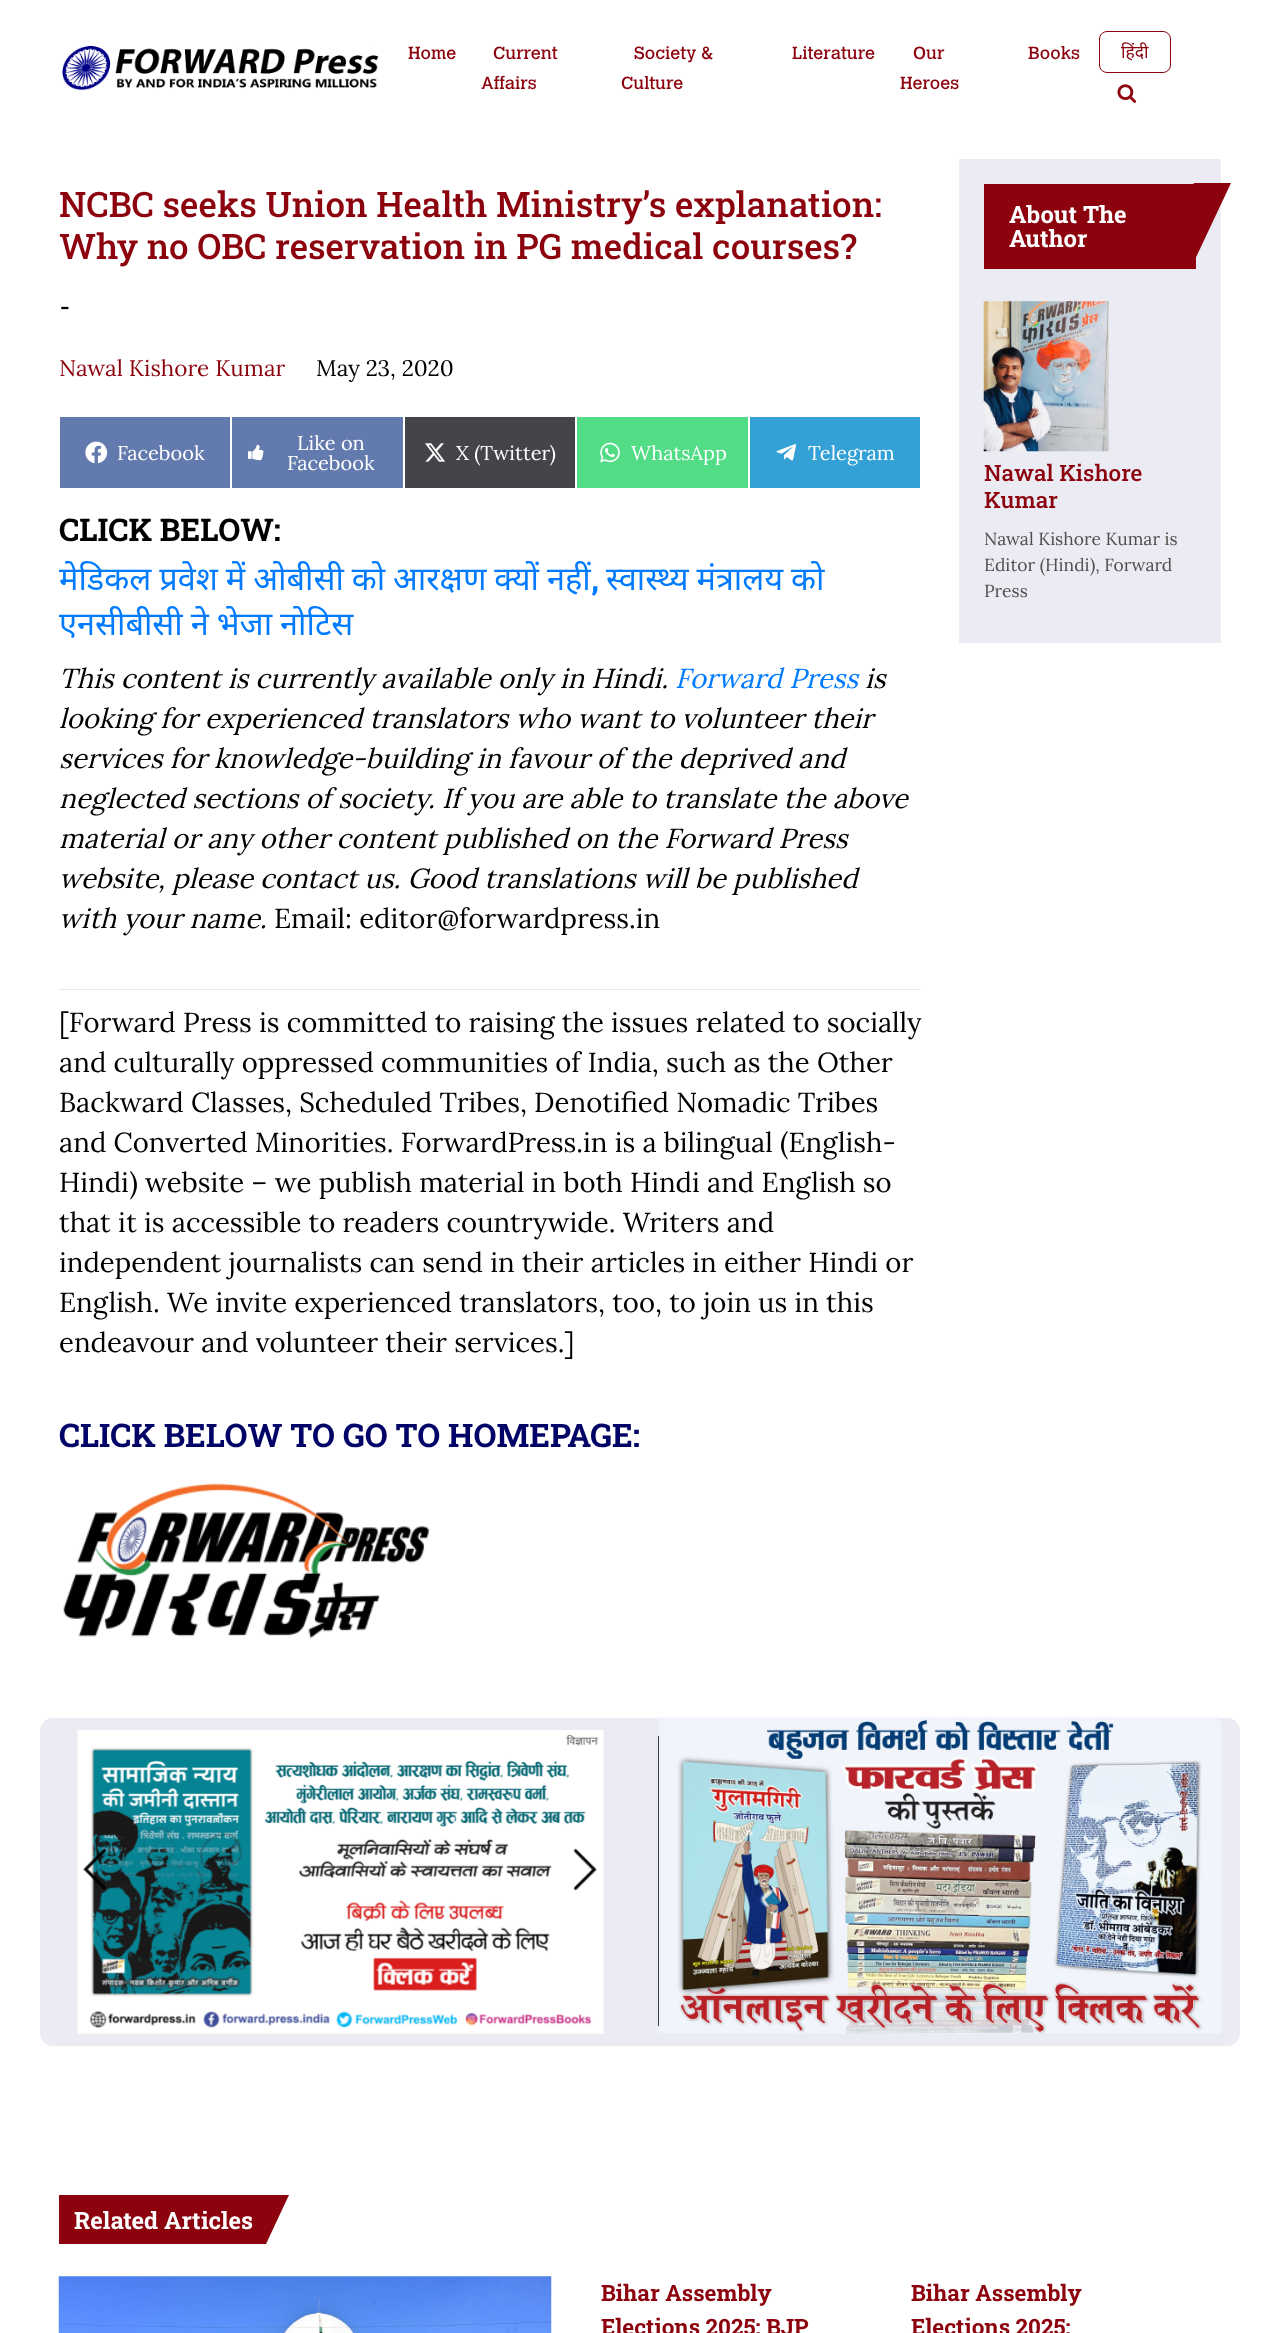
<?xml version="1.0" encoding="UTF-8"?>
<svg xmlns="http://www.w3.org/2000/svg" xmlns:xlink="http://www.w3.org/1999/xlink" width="1280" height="2333">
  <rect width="100%" height="100%" fill="#ffffff" />
  <image x="62" y="46" width="317" height="45" xlink:href="image1.png" />
  <rect x="1099.5" y="31.5" width="71" height="41" rx="7.5" fill="none" stroke="#8c030e" />
  <image x="1117" y="84" width="20" height="19" xlink:href="image2.png" />
  <rect x="60" y="417" width="170" height="71" fill="#627aad" />
  <image x="85" y="441" width="23" height="23" xlink:href="image3.png" />
  <rect x="232" y="417" width="171" height="71" fill="#627aad" />
  <image x="248" y="444" width="16" height="17" xlink:href="image4.png" />
  <rect x="405" y="417" width="170" height="71" fill="#434548" />
  <image x="425" y="443" width="20" height="19" xlink:href="image5.png" />
  <rect x="577" y="417" width="171" height="71" fill="#51dc85" />
  <image x="600" y="442" width="20" height="21" xlink:href="image6.png" />
  <rect x="750" y="417" width="170" height="71" fill="#33a0d6" />
  <image x="776" y="444" width="21" height="17" xlink:href="image7.png" />
  <rect x="59" y="989" width="862" height="1" fill="#e6e6e6" />
  <image x="63" y="1483" width="366" height="156" xlink:href="image8.png" />
  <rect x="959" y="159" width="262" height="484" fill="#ebebf3" />
  <rect x="984" y="184" width="212" height="85" fill="#8c030e" />
  <path d="M 1194 183 h 37 l -40 85 h -37 z" fill="#8c030e" />
  <image x="983" y="301" width="126" height="151" xlink:href="image9.png" />
  <rect x="40" y="1718" width="1200" height="328" rx="13" fill="#ebebf3" />
  <image x="77" y="1730" width="527" height="304" xlink:href="image10.png" />
  <rect x="658" y="1736" width="1" height="290" fill="#000000" />
  <image x="83" y="1848" width="24" height="42" xlink:href="image11.png" />
  <image x="573" y="1848" width="24" height="42" xlink:href="image12.png" />
  <image x="658" y="1717" width="563" height="317" xlink:href="image13.png" />
  <rect x="59" y="2195" width="168" height="49" fill="#8c030e" />
  <path d="M 227 2195 h 62 l -23 49 h -62 z" fill="#8c030e" />
  <image x="58" y="2276" width="494" height="57" xlink:href="image14.png" />
  <text x="408" y="59" style="font-family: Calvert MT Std; font-size: 17.5px; fill: #8c030e">Home</text>
  <text x="493" y="59" style="font-family: Calvert MT Std; font-size: 17.5px; fill: #8c030e">Current</text>
  <text x="481" y="89" style="font-family: Calvert MT Std; font-size: 17.5px; fill: #8c030e">Affairs</text>
  <text x="634" y="59" style="font-family: Calvert MT Std; font-size: 17.5px; fill: #8c030e">Society &amp;</text>
  <text x="621" y="89" style="font-family: Calvert MT Std; font-size: 17.5px; fill: #8c030e">Culture</text>
  <text x="792" y="59" style="font-family: Calvert MT Std; font-size: 17.5px; fill: #8c030e">Literature</text>
  <text x="913" y="59" style="font-family: Calvert MT Std; font-size: 17.5px; fill: #8c030e">Our</text>
  <text x="900" y="89" style="font-family: Calvert MT Std; font-size: 17.5px; fill: #8c030e">Heroes</text>
  <text x="1028" y="59" style="font-family: Calvert MT Std; font-size: 17.5px; fill: #8c030e">Books</text>
  <text x="1121" y="58" style="font-family: Noto Sans; font-size: 17.5px; fill: #8c030e">हिंदी</text>
  <text x="59" y="217" style="font-family: Roboto Slab; font-size: 35px; font-weight: 500; fill: #8c030e">NCBC seeks Union Health Ministry’s explanation:</text>
  <text x="59" y="259" style="font-family: Roboto Slab; font-size: 35px; font-weight: 500; fill: #8c030e">Why no OBC reservation in PG medical courses?</text>
  <text x="59" y="317" style="font-family: Roboto Slab; font-size: 30px; fill: #000000">-</text>
  <text x="59" y="376" style="font-family: Lora; font-size: 22.5px; fill: #8c030e">Nawal Kishore Kumar</text>
  <text x="316" y="376" style="font-family: Lora; font-size: 22.5px; fill: #000000">May 23, 2020</text>
  <text x="117" y="460" style="font-family: Lora; font-size: 20px; fill: #ffffff">Facebook</text>
  <text x="297" y="450" style="font-family: Lora; font-size: 20px; fill: #ffffff">Like on</text>
  <text x="287" y="470" style="font-family: Lora; font-size: 20px; fill: #ffffff">Facebook</text>
  <text x="456" y="460" style="font-family: Lora; font-size: 20px; fill: #ffffff">X (Twitter)</text>
  <text x="631" y="460" style="font-family: Lora; font-size: 20px; fill: #ffffff">WhatsApp</text>
  <text x="808" y="460" style="font-family: Lora; font-size: 20px; fill: #ffffff">Telegram</text>
  <text x="59" y="541" style="font-family: Roboto Slab; font-size: 31.25px; font-weight: bold; fill: #000000">CLICK BELOW:</text>
  <text x="59" y="590" word-spacing="-0.5" style="font-family: Noto Sans; font-size: 32.5px; fill: #007bff">मेडिकल प्रवेश में ओबीसी को आरक्षण क्यों नहीं</text>
  <text x="591" y="590" style="font-family: Roboto Slab; font-size: 32.5px; font-weight: bold; fill: #007bff">,</text>
  <text x="606" y="590" word-spacing="-0.5" style="font-family: Noto Sans; font-size: 32.5px; fill: #007bff">स्वास्थ्य मंत्रालय को</text>
  <text x="59" y="635" word-spacing="-0.5" style="font-family: Noto Sans; font-size: 32.5px; fill: #007bff">एनसीबीसी ने भेजा नोटिस</text>
  <text x="59" y="688" style="font-family: Lora; font-size: 27.5px; font-style: italic; fill: #000000">This content is currently available only in Hindi.</text>
  <text x="675" y="688" style="font-family: Lora; font-size: 27.5px; font-style: italic; fill: #007bff">Forward Press</text>
  <text x="865" y="688" style="font-family: Lora; font-size: 27.5px; font-style: italic; fill: #000000">is</text>
  <text x="59" y="728" style="font-family: Lora; font-size: 27.5px; font-style: italic; fill: #000000">looking for experienced translators who want to volunteer their</text>
  <text x="59" y="768" style="font-family: Lora; font-size: 27.5px; font-style: italic; fill: #000000">services for knowledge-building in favour of the deprived and</text>
  <text x="59" y="808" style="font-family: Lora; font-size: 27.5px; font-style: italic; fill: #000000">neglected sections of society. If you are able to translate the above</text>
  <text x="59" y="848" style="font-family: Lora; font-size: 27.5px; font-style: italic; fill: #000000">material or any other content published on the Forward Press</text>
  <text x="59" y="888" style="font-family: Lora; font-size: 27.5px; font-style: italic; fill: #000000">website, please contact us. Good translations will be published</text>
  <text x="59" y="928" style="font-family: Lora; font-size: 27.5px; font-style: italic; fill: #000000">with your name.</text>
  <text x="274" y="928" style="font-family: Lora; font-size: 27.5px; fill: #000000">Email: editor@forwardpress.in</text>
  <text x="59" y="1032" style="font-family: Lora; font-size: 27.5px; fill: #000000">[Forward Press is committed to raising the issues related to socially</text>
  <text x="59" y="1072" style="font-family: Lora; font-size: 27.5px; fill: #000000">and culturally oppressed communities of India, such as the Other</text>
  <text x="59" y="1112" style="font-family: Lora; font-size: 27.5px; fill: #000000">Backward Classes, Scheduled Tribes, Denotified Nomadic Tribes</text>
  <text x="59" y="1152" style="font-family: Lora; font-size: 27.5px; fill: #000000">and Converted Minorities. ForwardPress.in is a bilingual (English-</text>
  <text x="59" y="1192" style="font-family: Lora; font-size: 27.5px; fill: #000000">Hindi) website – we publish material in both Hindi and English so</text>
  <text x="59" y="1232" style="font-family: Lora; font-size: 27.5px; fill: #000000">that it is accessible to readers countrywide. Writers and</text>
  <text x="59" y="1272" style="font-family: Lora; font-size: 27.5px; fill: #000000">independent journalists can send in their articles in either Hindi or</text>
  <text x="59" y="1312" style="font-family: Lora; font-size: 27.5px; fill: #000000">English. We invite experienced translators, too, to join us in this</text>
  <text x="59" y="1352" style="font-family: Lora; font-size: 27.5px; fill: #000000">endeavour and volunteer their services.]</text>
  <text x="59" y="1447" style="font-family: Roboto Slab; font-size: 32.5px; font-weight: bold; fill: #010466">CLICK BELOW TO GO TO HOMEPAGE:</text>
  <text x="1009" y="223" style="font-family: Roboto Slab; font-size: 23.75px; font-weight: bold; fill: #ffffff">About The</text>
  <text x="1009" y="247" style="font-family: Roboto Slab; font-size: 23.75px; font-weight: bold; fill: #ffffff">Author</text>
  <text x="984" y="481" style="font-family: Roboto Slab; font-size: 22.5px; font-weight: 500; fill: #8c030e">Nawal Kishore</text>
  <text x="984" y="508" style="font-family: Roboto Slab; font-size: 22.5px; font-weight: 500; fill: #8c030e">Kumar</text>
  <text x="984" y="545" style="font-family: Lora; font-size: 17.5px; fill: #4f4f4f">Nawal Kishore Kumar is</text>
  <text x="984" y="571" style="font-family: Lora; font-size: 17.5px; fill: #4f4f4f">Editor (Hindi), Forward</text>
  <text x="984" y="597" style="font-family: Lora; font-size: 17.5px; fill: #4f4f4f">Press</text>
  <text x="74" y="2229" style="font-family: Roboto Slab; font-size: 23.75px; font-weight: bold; fill: #ffffff">Related Articles</text>
  <text x="601" y="2301" style="font-family: Roboto Slab; font-size: 22.5px; font-weight: bold; fill: #8c030e">Bihar Assembly</text>
  <text x="601" y="2335" style="font-family: Roboto Slab; font-size: 22.5px; font-weight: bold; fill: #8c030e">Elections 2025: BJP</text>
  <text x="911" y="2301" style="font-family: Roboto Slab; font-size: 22.5px; font-weight: bold; fill: #8c030e">Bihar Assembly</text>
  <text x="911" y="2335" style="font-family: Roboto Slab; font-size: 22.5px; font-weight: bold; fill: #8c030e">Elections 2025:</text>
</svg>
